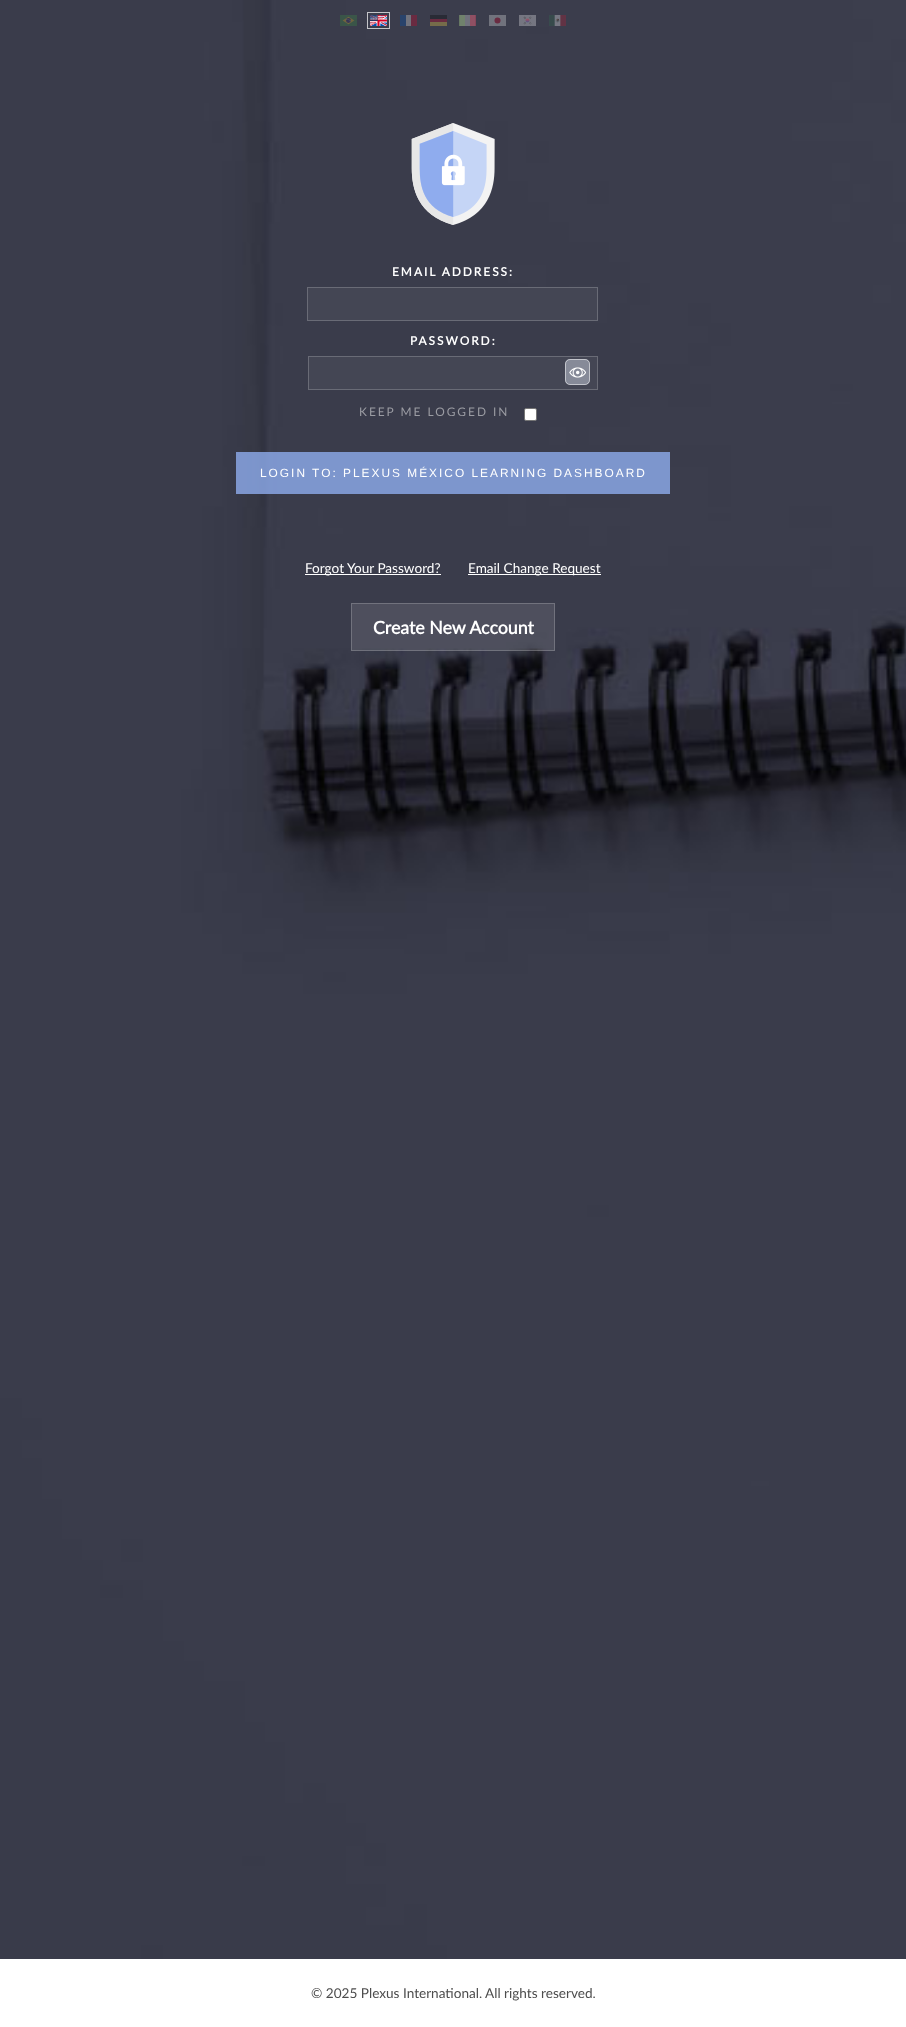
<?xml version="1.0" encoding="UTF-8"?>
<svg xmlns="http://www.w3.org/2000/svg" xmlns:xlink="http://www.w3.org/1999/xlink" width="906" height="2027">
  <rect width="100%" height="100%" fill="#ffffff" />
  <image x="0" y="0" width="906" height="1959" xlink:href="image1.png" />
  <image x="340" y="15" width="17" height="11" xlink:href="image2.png" />
  <rect x="367.5" y="12.5" width="22" height="16" fill="none" stroke="#c4c5c9" />
  <image x="370" y="15" width="17" height="11" xlink:href="image3.png" />
  <rect x="400" y="15" width="6" height="11" fill="#29436b" />
  <rect x="406" y="15" width="5" height="11" fill="#71737d" />
  <rect x="411" y="15" width="6" height="11" fill="#6a2b41" />
  <rect x="430" y="15" width="17" height="4" fill="#292b35" />
  <image x="459" y="15" width="17" height="11" xlink:href="image4.png" />
  <rect x="489" y="15" width="17" height="11" fill="#71737d" />
  <image x="519" y="15" width="17" height="11" xlink:href="image5.png" />
  <image x="549" y="15" width="17" height="11" xlink:href="image6.png" />
  <rect x="430" y="19" width="17" height="3" fill="#6a2b41" />
  <circle cx="497.5" cy="20.5" r="3" fill="#6a2b41" />
  <rect x="430" y="22" width="17" height="4" fill="#766c4a" />
  <image x="411" y="123" width="84" height="102" xlink:href="image7.png" />
  <rect x="307.5" y="287.5" width="290" height="33" fill="#444654" stroke="#696b76" />
  <rect x="308.5" y="356.5" width="289" height="33" fill="#444654" stroke="#696b76" />
  <rect x="565" y="359" width="25" height="26" rx="5" fill="#868a98" />
  <image x="569" y="367" width="17" height="11" xlink:href="image8.png" />
  <rect x="565.5" y="359.5" width="24" height="25" rx="4.5" fill="none" stroke="#ffffff" stroke-opacity="0.5" />
  <rect x="524.5" y="408.5" width="12" height="12" rx="1.5" fill="#ffffff" stroke="#767676" />
  <rect x="236" y="452" width="434" height="42" fill="#8facee" fill-opacity="0.8" />
  <rect x="305" y="574" width="136" height="1" fill="#ffffff" />
  <rect x="468" y="574" width="133" height="1" fill="#ffffff" />
  <rect x="351" y="603" width="204" height="48" fill="#ffffff" fill-opacity="0.1" />
  <rect x="351.5" y="603.5" width="203" height="47" fill="none" stroke="#ffffff" stroke-opacity="0.2" />
  <text x="392" y="276" style="font-family: Lato; font-size: 11.9px; font-weight: bold; letter-spacing: 2px; fill: #ffffff">EMAIL ADDRESS:</text>
  <text x="410" y="345" style="font-family: Lato; font-size: 11.9px; font-weight: bold; letter-spacing: 2px; fill: #ffffff">PASSWORD:</text>
  <text x="359" y="416" style="font-family: Lato; font-size: 11.9px; letter-spacing: 2px; fill: #9b9ca3">KEEP ME LOGGED IN</text>
  <text x="260" y="477" style="font-family: Liberation Sans; font-size: 11.9px; letter-spacing: 2px; fill: #ffffff">LOGIN TO: PLEXUS MÉXICO LEARNING DASHBOARD</text>
  <text x="305" y="573" style="font-family: Lato; font-size: 13.6px; fill: #ffffff">Forgot Your Password?</text>
  <text x="468" y="573" style="font-family: Lato; font-size: 13.6px; fill: #ffffff">Email Change Request</text>
  <text x="373" y="634" style="font-family: Lato; font-size: 17.75px; font-weight: bold; fill: #ffffff">Create New Account</text>
  <text x="311" y="1998" style="font-family: Lato; font-size: 13.6px; fill: #4d4d4d">© 2025 Plexus International.</text>
  <text x="485" y="1998" style="font-family: Lato; font-size: 13.6px; fill: #4d4d4d">All rights reserved.</text>
</svg>
